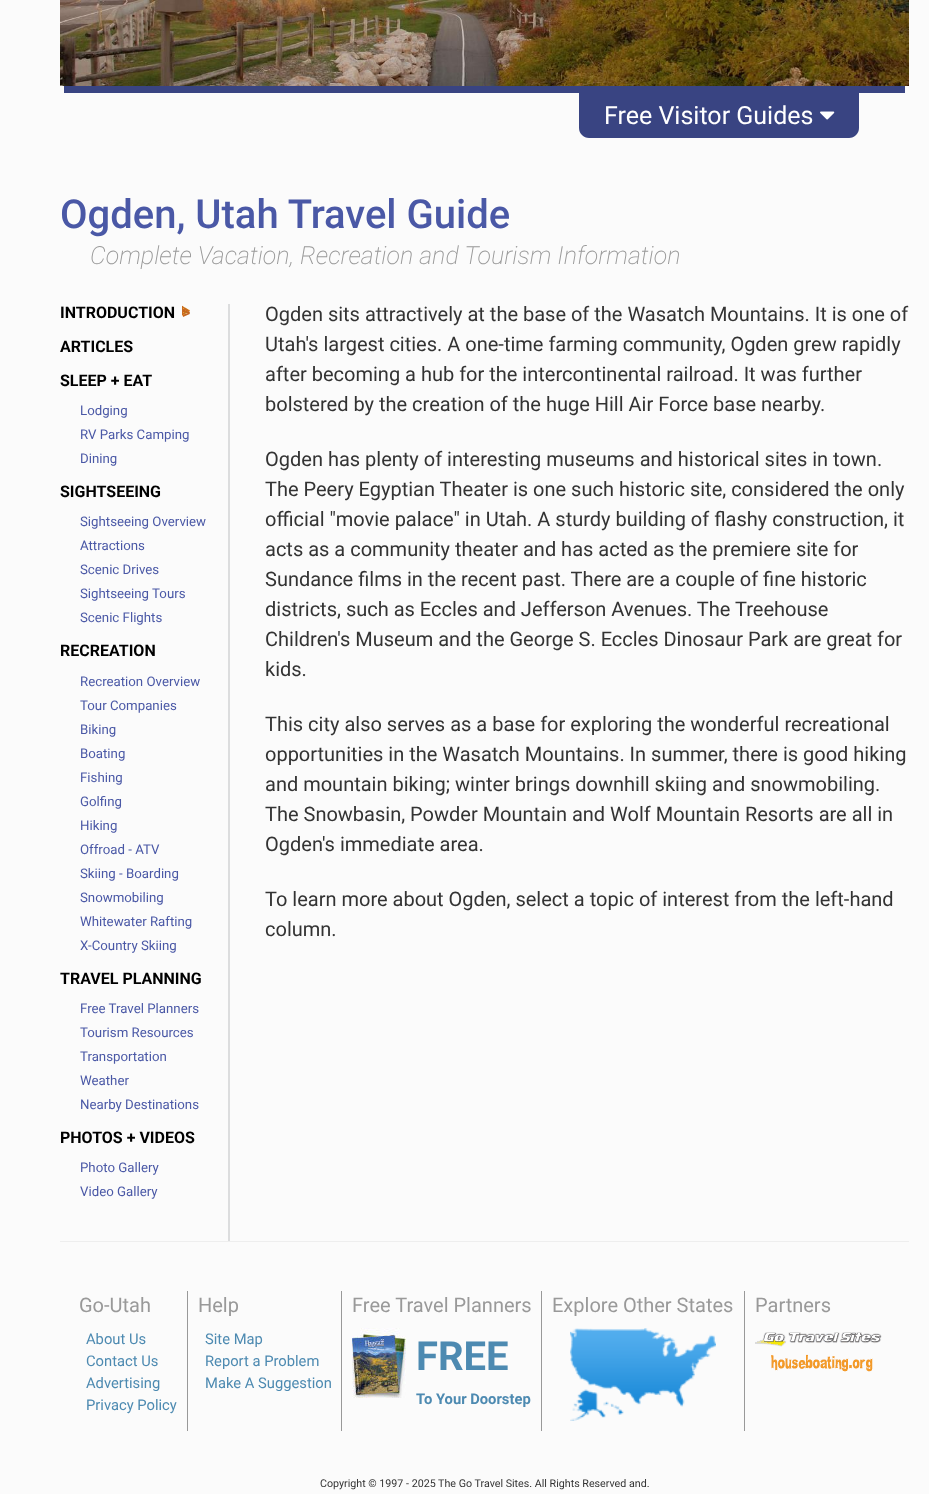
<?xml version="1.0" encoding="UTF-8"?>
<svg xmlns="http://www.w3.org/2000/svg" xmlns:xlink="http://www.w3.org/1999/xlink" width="929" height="1494">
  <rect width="100%" height="100%" fill="#fbfbfb" />
  <image x="60" y="0" width="849" height="86" xlink:href="image1.png" />
  <rect x="64" y="86" width="841" height="7" fill="#394482" />
  <path d="M 579 93 h 280 v 35 c 0 5.5 -4.5 10 -10 10 h -260 c -5.5 0 -10 -4.5 -10 -10 z" fill="#394482" />
  <image x="820" y="111" width="15" height="9" xlink:href="image2.png" />
  <rect x="228" y="304" width="2" height="937" fill="#dcddde" />
  <image x="182" y="305" width="8" height="11" xlink:href="image3.png" />
  <rect x="60" y="1241" width="849" height="1" fill="#eeeeee" />
  <rect x="187" y="1291" width="1" height="140" fill="#999999" />
  <rect x="341" y="1291" width="1" height="140" fill="#999999" />
  <rect x="541" y="1291" width="1" height="140" fill="#999999" />
  <image x="352" y="1328" width="54" height="70" xlink:href="image4.png" />
  <rect x="744" y="1291" width="1" height="140" fill="#999999" />
  <image x="570" y="1328" width="146" height="93" xlink:href="image5.png" />
  <image x="755" y="1332" width="127" height="15" xlink:href="image6.png" />
  <image x="771" y="1354" width="102" height="18" xlink:href="image7.png" />
  <text x="604" y="124" style="font-family: Roboto; font-size: 25px; fill: #ffffff">Free Visitor Guides</text>
  <text x="60" y="228" style="font-family: Roboto; font-size: 40px; font-weight: 500; fill: #4a58a6">Ogden, Utah Travel Guide</text>
  <text x="90" y="264" style="font-family: Roboto; font-size: 25px; font-weight: 200; font-style: italic; fill: #999999">Complete Vacation, Recreation and Tourism Information</text>
  <text x="60" y="318" style="font-family: Roboto; font-size: 16px; font-weight: bold; fill: #000000">INTRODUCTION</text>
  <text x="182" y="318" style="font-family: Roboto; font-size: 16px; font-weight: bold; fill: #c4651f">&gt;</text>
  <text x="60" y="352" style="font-family: Roboto; font-size: 16px; font-weight: bold; fill: #000000">ARTICLES</text>
  <text x="60" y="386" style="font-family: Roboto; font-size: 16px; font-weight: bold; fill: #000000">SLEEP + EAT</text>
  <text x="80" y="415" style="font-family: Roboto; font-size: 13.25px; fill: #4a58a6">Lodging</text>
  <text x="80" y="439" style="font-family: Roboto; font-size: 13.25px; fill: #4a58a6">RV Parks Camping</text>
  <text x="80" y="463" style="font-family: Roboto; font-size: 13.25px; fill: #4a58a6">Dining</text>
  <text x="60" y="497" style="font-family: Roboto; font-size: 16px; font-weight: bold; fill: #000000">SIGHTSEEING</text>
  <text x="80" y="526" style="font-family: Roboto; font-size: 13.25px; fill: #4a58a6">Sightseeing Overview</text>
  <text x="80" y="550" style="font-family: Roboto; font-size: 13.25px; fill: #4a58a6">Attractions</text>
  <text x="80" y="574" style="font-family: Roboto; font-size: 13.25px; fill: #4a58a6">Scenic Drives</text>
  <text x="80" y="598" style="font-family: Roboto; font-size: 13.25px; fill: #4a58a6">Sightseeing Tours</text>
  <text x="80" y="622" style="font-family: Roboto; font-size: 13.25px; fill: #4a58a6">Scenic Flights</text>
  <text x="60" y="656" style="font-family: Roboto; font-size: 16px; font-weight: bold; fill: #000000">RECREATION</text>
  <text x="80" y="686" style="font-family: Roboto; font-size: 13.25px; fill: #4a58a6">Recreation Overview</text>
  <text x="80" y="710" style="font-family: Roboto; font-size: 13.25px; fill: #4a58a6">Tour Companies</text>
  <text x="80" y="734" style="font-family: Roboto; font-size: 13.25px; fill: #4a58a6">Biking</text>
  <text x="80" y="758" style="font-family: Roboto; font-size: 13.25px; fill: #4a58a6">Boating</text>
  <text x="80" y="782" style="font-family: Roboto; font-size: 13.25px; fill: #4a58a6">Fishing</text>
  <text x="80" y="806" style="font-family: Roboto; font-size: 13.25px; fill: #4a58a6">Golfing</text>
  <text x="80" y="830" style="font-family: Roboto; font-size: 13.25px; fill: #4a58a6">Hiking</text>
  <text x="80" y="854" style="font-family: Roboto; font-size: 13.25px; fill: #4a58a6">Offroad - ATV</text>
  <text x="80" y="878" style="font-family: Roboto; font-size: 13.25px; fill: #4a58a6">Skiing - Boarding</text>
  <text x="80" y="902" style="font-family: Roboto; font-size: 13.25px; fill: #4a58a6">Snowmobiling</text>
  <text x="80" y="926" style="font-family: Roboto; font-size: 13.25px; fill: #4a58a6">Whitewater Rafting</text>
  <text x="80" y="950" style="font-family: Roboto; font-size: 13.25px; fill: #4a58a6">X-Country Skiing</text>
  <text x="60" y="984" style="font-family: Roboto; font-size: 16px; font-weight: bold; fill: #000000">TRAVEL PLANNING</text>
  <text x="80" y="1013" style="font-family: Roboto; font-size: 13.25px; fill: #4a58a6">Free Travel Planners</text>
  <text x="80" y="1037" style="font-family: Roboto; font-size: 13.25px; fill: #4a58a6">Tourism Resources</text>
  <text x="80" y="1061" style="font-family: Roboto; font-size: 13.25px; fill: #4a58a6">Transportation</text>
  <text x="80" y="1085" style="font-family: Roboto; font-size: 13.25px; fill: #4a58a6">Weather</text>
  <text x="80" y="1109" style="font-family: Roboto; font-size: 13.25px; fill: #4a58a6">Nearby Destinations</text>
  <text x="60" y="1143" style="font-family: Roboto; font-size: 16px; font-weight: bold; fill: #000000">PHOTOS + VIDEOS</text>
  <text x="80" y="1172" style="font-family: Roboto; font-size: 13.25px; fill: #4a58a6">Photo Gallery</text>
  <text x="80" y="1196" style="font-family: Roboto; font-size: 13.25px; fill: #4a58a6">Video Gallery</text>
  <text x="265" y="321" style="font-family: Roboto; font-size: 20px; fill: #333333">Ogden sits attractively at the base of the Wasatch Mountains. It is one of</text>
  <text x="265" y="351" style="font-family: Roboto; font-size: 20px; fill: #333333">Utah's largest cities. A one-time farming community, Ogden grew rapidly</text>
  <text x="265" y="381" style="font-family: Roboto; font-size: 20px; fill: #333333">after becoming a hub for the intercontinental railroad. It was further</text>
  <text x="265" y="411" style="font-family: Roboto; font-size: 20px; fill: #333333">bolstered by the creation of the huge Hill Air Force base nearby.</text>
  <text x="265" y="466" style="font-family: Roboto; font-size: 20px; fill: #333333">Ogden has plenty of interesting museums and historical sites in town.</text>
  <text x="265" y="496" style="font-family: Roboto; font-size: 20px; fill: #333333">The Peery Egyptian Theater is one such historic site, considered the only</text>
  <text x="265" y="526" style="font-family: Roboto; font-size: 20px; fill: #333333">official "movie palace" in Utah. A sturdy building of flashy construction, it</text>
  <text x="265" y="556" style="font-family: Roboto; font-size: 20px; fill: #333333">acts as a community theater and has acted as the premiere site for</text>
  <text x="265" y="586" style="font-family: Roboto; font-size: 20px; fill: #333333">Sundance films in the recent past. There are a couple of fine historic</text>
  <text x="265" y="616" style="font-family: Roboto; font-size: 20px; fill: #333333">districts, such as Eccles and Jefferson Avenues. The Treehouse</text>
  <text x="265" y="646" style="font-family: Roboto; font-size: 20px; fill: #333333">Children's Museum and the George S. Eccles Dinosaur Park are great for</text>
  <text x="265" y="676" style="font-family: Roboto; font-size: 20px; fill: #333333">kids.</text>
  <text x="265" y="731" style="font-family: Roboto; font-size: 20px; fill: #333333">This city also serves as a base for exploring the wonderful recreational</text>
  <text x="265" y="761" style="font-family: Roboto; font-size: 20px; fill: #333333">opportunities in the Wasatch Mountains. In summer, there is good hiking</text>
  <text x="265" y="791" style="font-family: Roboto; font-size: 20px; fill: #333333">and mountain biking; winter brings downhill skiing and snowmobiling.</text>
  <text x="265" y="821" style="font-family: Roboto; font-size: 20px; fill: #333333">The Snowbasin, Powder Mountain and Wolf Mountain Resorts are all in</text>
  <text x="265" y="851" style="font-family: Roboto; font-size: 20px; fill: #333333">Ogden's immediate area.</text>
  <text x="265" y="906" style="font-family: Roboto; font-size: 20px; fill: #333333">To learn more about Ogden, select a topic of interest from the left-hand</text>
  <text x="265" y="936" style="font-family: Roboto; font-size: 20px; fill: #333333">column.</text>
  <text x="79" y="1312" style="font-family: Roboto; font-size: 20px; fill: #999999">Go-Utah</text>
  <text x="86" y="1344" style="font-family: Roboto; font-size: 14.75px; fill: #4d8ab1">About Us</text>
  <text x="86" y="1366" style="font-family: Roboto; font-size: 14.75px; fill: #4d8ab1">Contact Us</text>
  <text x="86" y="1388" style="font-family: Roboto; font-size: 14.75px; fill: #4d8ab1">Advertising</text>
  <text x="86" y="1410" style="font-family: Roboto; font-size: 14.75px; fill: #4d8ab1">Privacy Policy</text>
  <text x="198" y="1312" style="font-family: Roboto; font-size: 20px; fill: #999999">Help</text>
  <text x="205" y="1344" style="font-family: Roboto; font-size: 14.75px; fill: #4d8ab1">Site Map</text>
  <text x="205" y="1366" style="font-family: Roboto; font-size: 14.75px; fill: #4d8ab1">Report a Problem</text>
  <text x="205" y="1388" style="font-family: Roboto; font-size: 14.75px; fill: #4d8ab1">Make A Suggestion</text>
  <text x="352" y="1312" style="font-family: Roboto; font-size: 20px; fill: #999999">Free Travel Planners</text>
  <text x="416" y="1370" style="font-family: Roboto; font-size: 40px; font-weight: bold; fill: #4d8ab1">FREE</text>
  <text x="416" y="1404" style="font-family: Roboto; font-size: 14.75px; font-weight: bold; fill: #4d8ab1">To Your Doorstep</text>
  <text x="552" y="1312" style="font-family: Roboto; font-size: 20px; fill: #999999">Explore Other States</text>
  <text x="755" y="1312" style="font-family: Roboto; font-size: 20px; fill: #999999">Partners</text>
  <text x="320" y="1487" style="font-family: Roboto; font-size: 10.7px; fill: #333333">Copyright © 1997 - 2025 The Go Travel Sites. All Rights Reserved and.</text>
</svg>
